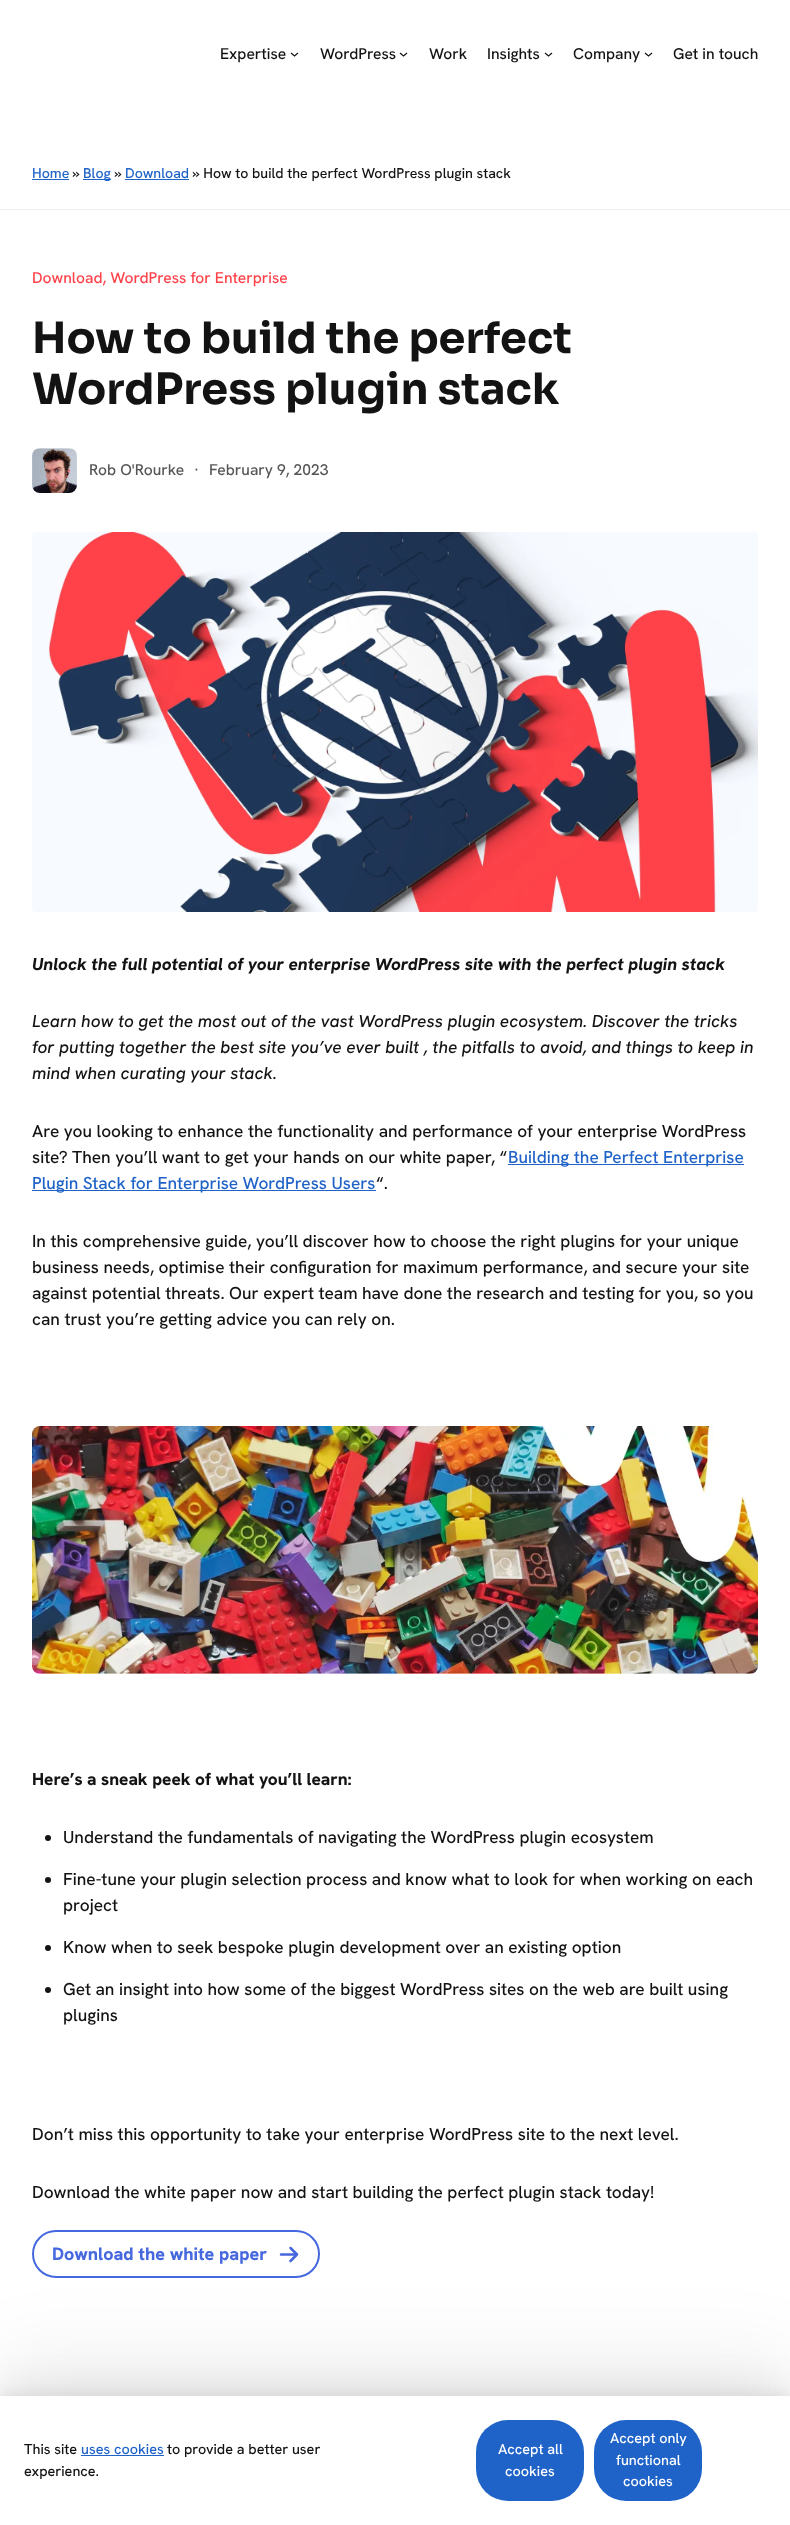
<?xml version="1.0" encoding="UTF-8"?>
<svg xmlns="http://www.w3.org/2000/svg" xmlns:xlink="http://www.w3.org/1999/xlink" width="790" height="2525">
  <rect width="100%" height="100%" fill="#ffffff" />
  <path d="M 291 53 l 3.5 3 l 3.5 -3" fill="none" stroke="#131313" stroke-width="1.2" />
  <path d="M 400 53 l 3.5 3 l 3.5 -3" fill="none" stroke="#131313" stroke-width="1.2" />
  <path d="M 545 53 l 3.5 3 l 3.5 -3" fill="none" stroke="#131313" stroke-width="1.2" />
  <path d="M 645 53 l 3.5 3 l 3.5 -3" fill="none" stroke="#131313" stroke-width="1.2" />
  <rect y="209" width="790" height="1" fill="#efefef" />
  <rect x="32" y="179" width="37" height="1" fill="#1f63c8" />
  <rect x="83" y="179" width="28" height="1" fill="#1f63c8" />
  <rect x="125" y="179" width="64" height="1" fill="#1f63c8" />
  <image x="32" y="448" width="45" height="45" xlink:href="image1.png" />
  <image x="32" y="532" width="726" height="380" xlink:href="image2.png" />
  <rect x="508" y="1164" width="236" height="1" fill="#1f63c8" />
  <rect x="32" y="1190" width="344" height="1" fill="#1f63c8" />
  <image x="32" y="1426" width="726" height="248" xlink:href="image3.png" />
  <circle cx="48" cy="1838" r="3" fill="#131313" />
  <circle cx="48" cy="1880" r="3" fill="#131313" />
  <circle cx="48" cy="1948" r="3" fill="#131313" />
  <circle cx="48" cy="1990" r="3" fill="#131313" />
  <rect x="33" y="2231" width="286" height="46" rx="23" fill="none" stroke="#4668df" stroke-width="2" />
  <path d="M 281 2254.5 h 16 m -6.5 -6.5 l 6.5 6.5 l -6.5 6.5" fill="none" stroke="#4668df" stroke-width="2.5" stroke-linecap="round" stroke-linejoin="round" />
  <rect y="2391" width="790" height="129" fill="#000000" fill-opacity="0.04" filter="blur(5px)" />
  <rect y="2381" width="790" height="129" fill="#000000" fill-opacity="0.05" filter="blur(16.5px)" />
  <rect y="2360" width="790" height="129" fill="#000000" fill-opacity="0.07" filter="blur(40px)" />
  <rect y="2396" width="790" height="129" fill="#ffffff" />
  <rect x="81" y="2455" width="83" height="1" fill="#1f63c8" />
  <rect x="476" y="2420" width="108" height="81" rx="32" fill="#1f63c8" />
  <rect x="594" y="2420" width="108" height="81" rx="32" fill="#1f63c8" />
  <text x="220" y="59" style="font-family: Hanken Grotesk; font-size: 15.6px; font-weight: 500; fill: #131313">Expertise</text>
  <text x="320" y="59" style="font-family: Hanken Grotesk; font-size: 15.6px; font-weight: 500; fill: #131313">WordPress</text>
  <text x="429" y="59" style="font-family: Hanken Grotesk; font-size: 15.6px; font-weight: 500; fill: #131313">Work</text>
  <text x="487" y="59" style="font-family: Hanken Grotesk; font-size: 15.6px; font-weight: 500; fill: #131313">Insights</text>
  <text x="573" y="59" style="font-family: Hanken Grotesk; font-size: 15.6px; font-weight: 500; fill: #131313">Company</text>
  <text x="673" y="59" style="font-family: Hanken Grotesk; font-size: 15.6px; font-weight: 500; fill: #131313">Get in touch</text>
  <text x="32" y="178" style="font-family: Hanken Grotesk; font-size: 14.2px; font-weight: 500; fill: #1f63c8">Home</text>
  <text x="73" y="178" style="font-family: Hanken Grotesk; font-size: 14.2px; font-weight: 500; fill: #131313">»</text>
  <text x="83" y="178" style="font-family: Hanken Grotesk; font-size: 14.2px; font-weight: 500; fill: #1f63c8">Blog</text>
  <text x="115" y="178" style="font-family: Hanken Grotesk; font-size: 14.2px; font-weight: 500; fill: #131313">»</text>
  <text x="125" y="178" style="font-family: Hanken Grotesk; font-size: 14.2px; font-weight: 500; fill: #1f63c8">Download</text>
  <text x="193" y="178" style="font-family: Hanken Grotesk; font-size: 14.2px; font-weight: 500; fill: #131313">» How to build the perfect WordPress plugin stack</text>
  <text x="32" y="283" style="font-family: Hanken Grotesk; font-size: 15.6px; font-weight: 500; fill: #ff424a">Download, WordPress for Enterprise</text>
  <text x="32" y="353" style="font-family: Sora; font-size: 43px; font-weight: bold; fill: #131313">How to build the perfect</text>
  <text x="32" y="404" style="font-family: Sora; font-size: 43px; font-weight: bold; fill: #131313">WordPress plugin stack</text>
  <text x="89" y="475" style="font-family: Hanken Grotesk; font-size: 15.6px; font-weight: 500; fill: #565656">Rob O'Rourke</text>
  <text x="194" y="475" style="font-family: Hanken Grotesk; font-size: 15.6px; font-weight: 500; fill: #565656">·</text>
  <text x="209" y="475" style="font-family: Hanken Grotesk; font-size: 15.6px; font-weight: 500; fill: #565656">February 9, 2023</text>
  <text x="32" y="970" style="font-family: Hanken Grotesk; font-size: 17.3px; font-weight: 800; font-style: italic; fill: #131313">Unlock the full potential of your enterprise WordPress site with the perfect plugin stack</text>
  <text x="32" y="1027" style="font-family: Hanken Grotesk; font-size: 17.3px; font-weight: 500; font-style: italic; fill: #131313">Learn how to get the most out of the vast WordPress plugin ecosystem. Discover the tricks</text>
  <text x="32" y="1053" style="font-family: Hanken Grotesk; font-size: 17.3px; font-weight: 500; font-style: italic; fill: #131313">for putting together the best site you’ve ever built , the pitfalls to avoid, and things to keep in</text>
  <text x="32" y="1079" style="font-family: Hanken Grotesk; font-size: 17.3px; font-weight: 500; font-style: italic; fill: #131313">mind when curating your stack.</text>
  <text x="32" y="1137" style="font-family: Hanken Grotesk; font-size: 17.3px; font-weight: 500; fill: #131313">Are you looking to enhance the functionality and performance of your enterprise WordPress</text>
  <text x="32" y="1163" style="font-family: Hanken Grotesk; font-size: 17.3px; font-weight: 500; fill: #131313">site? Then you’ll want to get your hands on our white paper, “</text>
  <text x="508" y="1163" style="font-family: Hanken Grotesk; font-size: 17.3px; font-weight: 500; fill: #1f63c8">Building the Perfect Enterprise</text>
  <text x="32" y="1189" style="font-family: Hanken Grotesk; font-size: 17.3px; font-weight: 500; fill: #1f63c8">Plugin Stack for Enterprise WordPress Users</text>
  <text x="376" y="1189" style="font-family: Hanken Grotesk; font-size: 17.3px; font-weight: 500; fill: #131313">“.</text>
  <text x="32" y="1247" style="font-family: Hanken Grotesk; font-size: 17.3px; font-weight: 500; fill: #131313">In this comprehensive guide, you’ll discover how to choose the right plugins for your unique</text>
  <text x="32" y="1273" style="font-family: Hanken Grotesk; font-size: 17.3px; font-weight: 500; fill: #131313">business needs, optimise their configuration for maximum performance, and secure your site</text>
  <text x="32" y="1299" style="font-family: Hanken Grotesk; font-size: 17.3px; font-weight: 500; fill: #131313">against potential threats. Our expert team have done the research and testing for you, so you</text>
  <text x="32" y="1325" style="font-family: Hanken Grotesk; font-size: 17.3px; font-weight: 500; fill: #131313">can trust you’re getting advice you can rely on.</text>
  <text x="32" y="1785" style="font-family: Hanken Grotesk; font-size: 17.3px; font-weight: 800; fill: #131313">Here’s a sneak peek of what you’ll learn:</text>
  <text x="63" y="1843" style="font-family: Hanken Grotesk; font-size: 17.3px; font-weight: 500; fill: #131313">Understand the fundamentals of navigating the WordPress plugin ecosystem</text>
  <text x="63" y="1885" style="font-family: Hanken Grotesk; font-size: 17.3px; font-weight: 500; fill: #131313">Fine-tune your plugin selection process and know what to look for when working on each</text>
  <text x="63" y="1911" style="font-family: Hanken Grotesk; font-size: 17.3px; font-weight: 500; fill: #131313">project</text>
  <text x="63" y="1953" style="font-family: Hanken Grotesk; font-size: 17.3px; font-weight: 500; fill: #131313">Know when to seek bespoke plugin development over an existing option</text>
  <text x="63" y="1995" style="font-family: Hanken Grotesk; font-size: 17.3px; font-weight: 500; fill: #131313">Get an insight into how some of the biggest WordPress sites on the web are built using</text>
  <text x="63" y="2021" style="font-family: Hanken Grotesk; font-size: 17.3px; font-weight: 500; fill: #131313">plugins</text>
  <text x="32" y="2140" style="font-family: Hanken Grotesk; font-size: 17.3px; font-weight: 500; fill: #131313">Don’t miss this opportunity to take your enterprise WordPress site to the next level.</text>
  <text x="32" y="2198" style="font-family: Hanken Grotesk; font-size: 17.3px; font-weight: 500; fill: #131313">Download the white paper now and start building the perfect plugin stack today!</text>
  <text x="52" y="2260" style="font-family: Hanken Grotesk; font-size: 18px; font-weight: 800; fill: #4668df">Download the white paper</text>
  <text x="24" y="2454" style="font-family: Hanken Grotesk; font-size: 14.4px; font-weight: 500; fill: #131313">This site</text>
  <text x="81" y="2454" style="font-family: Hanken Grotesk; font-size: 14.4px; font-weight: 500; fill: #1f63c8">uses cookies</text>
  <text x="167" y="2454" style="font-family: Hanken Grotesk; font-size: 14.4px; font-weight: 500; fill: #131313">to provide a better user</text>
  <text x="24" y="2476" style="font-family: Hanken Grotesk; font-size: 14.4px; font-weight: 500; fill: #131313">experience.</text>
  <text x="498" y="2454" style="font-family: Hanken Grotesk; font-size: 14.4px; font-weight: 500; fill: #ffffff">Accept all</text>
  <text x="505" y="2476" style="font-family: Hanken Grotesk; font-size: 14.4px; font-weight: 500; fill: #ffffff">cookies</text>
  <text x="610" y="2443" style="font-family: Hanken Grotesk; font-size: 14.4px; font-weight: 500; fill: #ffffff">Accept only</text>
  <text x="616" y="2465" style="font-family: Hanken Grotesk; font-size: 14.4px; font-weight: 500; fill: #ffffff">functional</text>
  <text x="623" y="2486" style="font-family: Hanken Grotesk; font-size: 14.4px; font-weight: 500; fill: #ffffff">cookies</text>
</svg>
